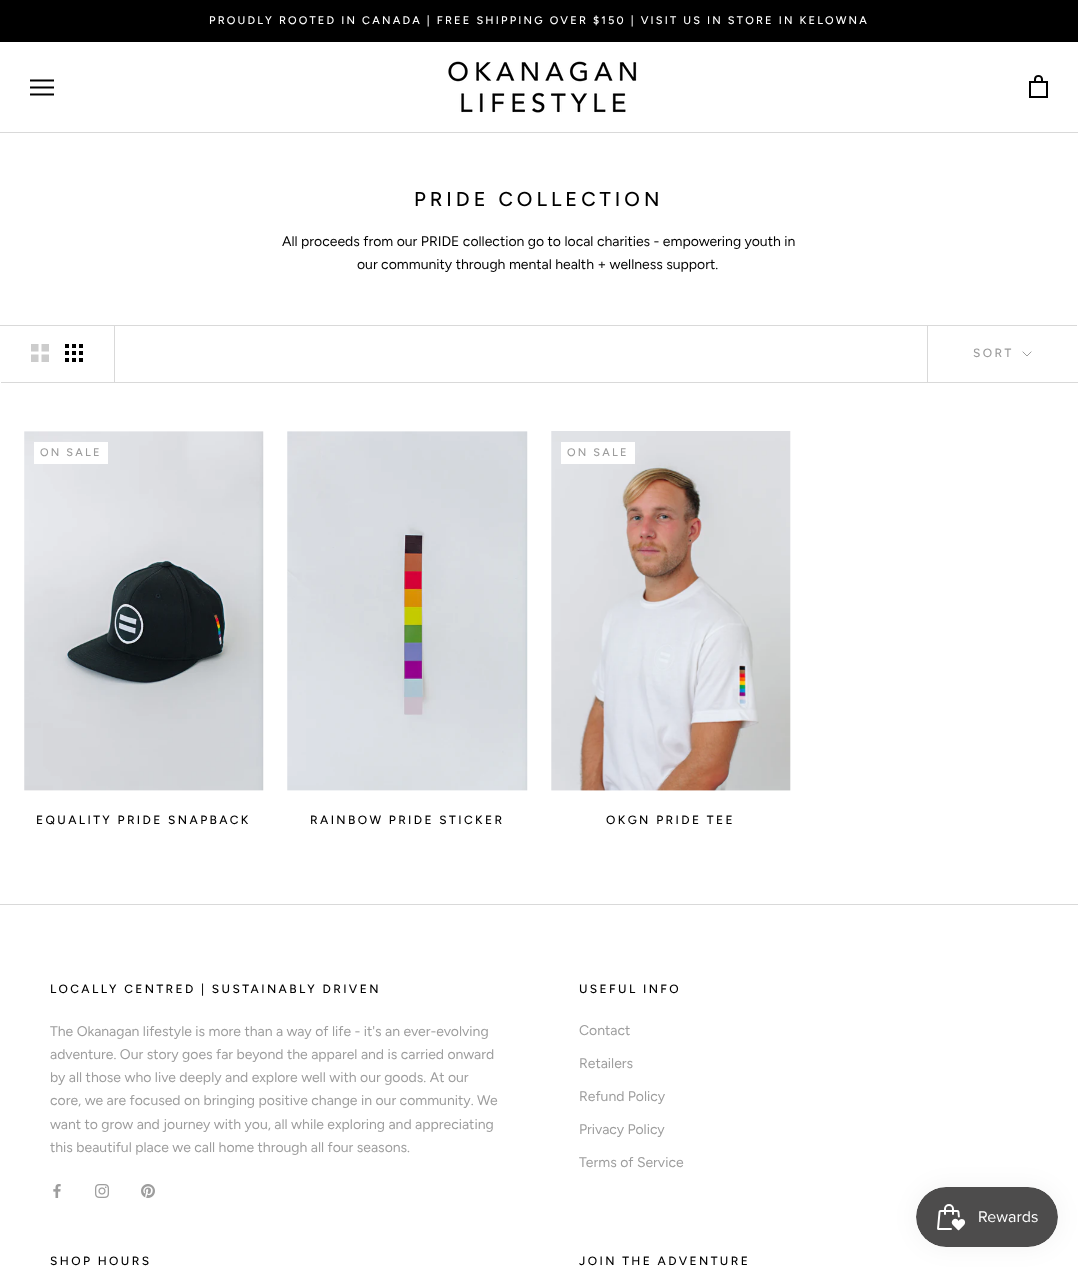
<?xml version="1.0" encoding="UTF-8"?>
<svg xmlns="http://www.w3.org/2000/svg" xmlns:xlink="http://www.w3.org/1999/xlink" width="1078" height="1267">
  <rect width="100%" height="100%" fill="#ffffff" />
  <rect width="1078" height="42" fill="#000000" />
  <rect y="132" width="1078" height="1" fill="#d9d9d9" />
  <image x="30" y="79" width="24" height="17" xlink:href="image1.png" />
  <image x="448" y="61" width="189" height="52" xlink:href="image2.png" />
  <image x="1029" y="75" width="19" height="23" xlink:href="image3.png" />
  <path d="M -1 325 v 56 h 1 v -55 h 1077 v -1 z" fill="#d9d9d9" />
  <path d="M 1 382 v 1 h 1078 v -56 h -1 v 55 z" fill="#d9d9d9" />
  <rect x="114" y="326" width="1" height="56" fill="#d9d9d9" />
  <image x="31" y="344" width="18" height="18" xlink:href="image4.png" />
  <image x="65" y="344" width="18" height="18" xlink:href="image5.png" />
  <rect x="927" y="326" width="1" height="56" fill="#d9d9d9" />
  <path d="M 1031 352 l -4 4 l -4 -4" fill="none" stroke="#9d9d9d" stroke-linecap="square" />
  <image x="24" y="431" width="240" height="360" xlink:href="image6.png" />
  <rect x="34" y="442" width="74" height="22" fill="#ffffff" />
  <image x="287" y="431" width="241" height="360" xlink:href="image7.png" />
  <image x="551" y="431" width="240" height="360" xlink:href="image8.png" />
  <rect x="561" y="442" width="74" height="22" fill="#ffffff" />
  <rect y="904" width="1078" height="1" fill="#d9d9d9" />
  <image x="53" y="1184" width="8" height="14" xlink:href="image9.png" />
  <image x="95" y="1184" width="14" height="14" xlink:href="image10.png" />
  <image x="141" y="1184" width="14" height="14" xlink:href="image11.png" />
  <rect x="916" y="1187" width="142" height="60" rx="30" fill="#000000" fill-opacity="0.05" filter="blur(12.5px)" />
  <image x="916" y="1187" width="142" height="60" xlink:href="image12.png" />
  <text x="209" y="24" style="font-family: Figtree; font-size: 11px; font-weight: 500; letter-spacing: 2.2px; fill: #ffffff">PROUDLY ROOTED IN CANADA | FREE SHIPPING OVER $150 | VISIT US IN STORE IN KELOWNA</text>
  <text x="414" y="206" style="font-family: Figtree; font-size: 20px; font-weight: 500; letter-spacing: 4px; fill: #000000">PRIDE COLLECTION</text>
  <text x="282" y="246" style="font-family: Figtree; font-size: 14px; fill: #000000">All proceeds from our PRIDE collection go to local charities - empowering youth in</text>
  <text x="357" y="269" style="font-family: Figtree; font-size: 14px; fill: #000000">our community through mental health + wellness support.</text>
  <text x="973" y="357" style="font-family: Figtree; font-size: 12px; font-weight: 500; letter-spacing: 2.4px; fill: #9d9d9d">SORT</text>
  <text x="40" y="456" style="font-family: Figtree; font-size: 11px; font-weight: 500; letter-spacing: 2.2px; fill: #9d9d9d">ON SALE</text>
  <text x="36" y="824" style="font-family: Figtree; font-size: 12px; font-weight: 500; letter-spacing: 2.4px; fill: #000000">EQUALITY PRIDE SNAPBACK</text>
  <text x="310" y="824" style="font-family: Figtree; font-size: 12px; font-weight: 500; letter-spacing: 2.4px; fill: #000000">RAINBOW PRIDE STICKER</text>
  <text x="567" y="456" style="font-family: Figtree; font-size: 11px; font-weight: 500; letter-spacing: 2.2px; fill: #9d9d9d">ON SALE</text>
  <text x="606" y="824" style="font-family: Figtree; font-size: 12px; font-weight: 500; letter-spacing: 2.4px; fill: #000000">OKGN PRIDE TEE</text>
  <text x="50" y="993" style="font-family: Figtree; font-size: 12px; font-weight: 500; letter-spacing: 2.4px; fill: #000000">LOCALLY CENTRED | SUSTAINABLY DRIVEN</text>
  <text x="50" y="1036" style="font-family: Figtree; font-size: 14px; fill: #9d9d9d">The Okanagan lifestyle is more than a way of life - it's an ever-evolving</text>
  <text x="50" y="1059" style="font-family: Figtree; font-size: 14px; fill: #9d9d9d">adventure. Our story goes far beyond the apparel and is carried onward</text>
  <text x="50" y="1082" style="font-family: Figtree; font-size: 14px; fill: #9d9d9d">by all those who live deeply and explore well with our goods. At our</text>
  <text x="50" y="1105" style="font-family: Figtree; font-size: 14px; fill: #9d9d9d">core, we are focused on bringing positive change in our community. We</text>
  <text x="50" y="1129" style="font-family: Figtree; font-size: 14px; fill: #9d9d9d">want to grow and journey with you, all while exploring and appreciating</text>
  <text x="50" y="1152" style="font-family: Figtree; font-size: 14px; fill: #9d9d9d">this beautiful place we call home through all four seasons.</text>
  <text x="579" y="993" style="font-family: Figtree; font-size: 12px; font-weight: 500; letter-spacing: 2.4px; fill: #000000">USEFUL INFO</text>
  <text x="579" y="1035" style="font-family: Figtree; font-size: 14px; fill: #9d9d9d">Contact</text>
  <text x="579" y="1068" style="font-family: Figtree; font-size: 14px; fill: #9d9d9d">Retailers</text>
  <text x="579" y="1101" style="font-family: Figtree; font-size: 14px; fill: #9d9d9d">Refund Policy</text>
  <text x="579" y="1134" style="font-family: Figtree; font-size: 14px; fill: #9d9d9d">Privacy Policy</text>
  <text x="579" y="1167" style="font-family: Figtree; font-size: 14px; fill: #9d9d9d">Terms of Service</text>
  <text x="50" y="1265" style="font-family: Figtree; font-size: 12px; font-weight: 500; letter-spacing: 2.4px; fill: #000000">SHOP HOURS</text>
  <text x="579" y="1265" style="font-family: Figtree; font-size: 12px; font-weight: 500; letter-spacing: 2.4px; fill: #000000">JOIN THE ADVENTURE</text>
</svg>
